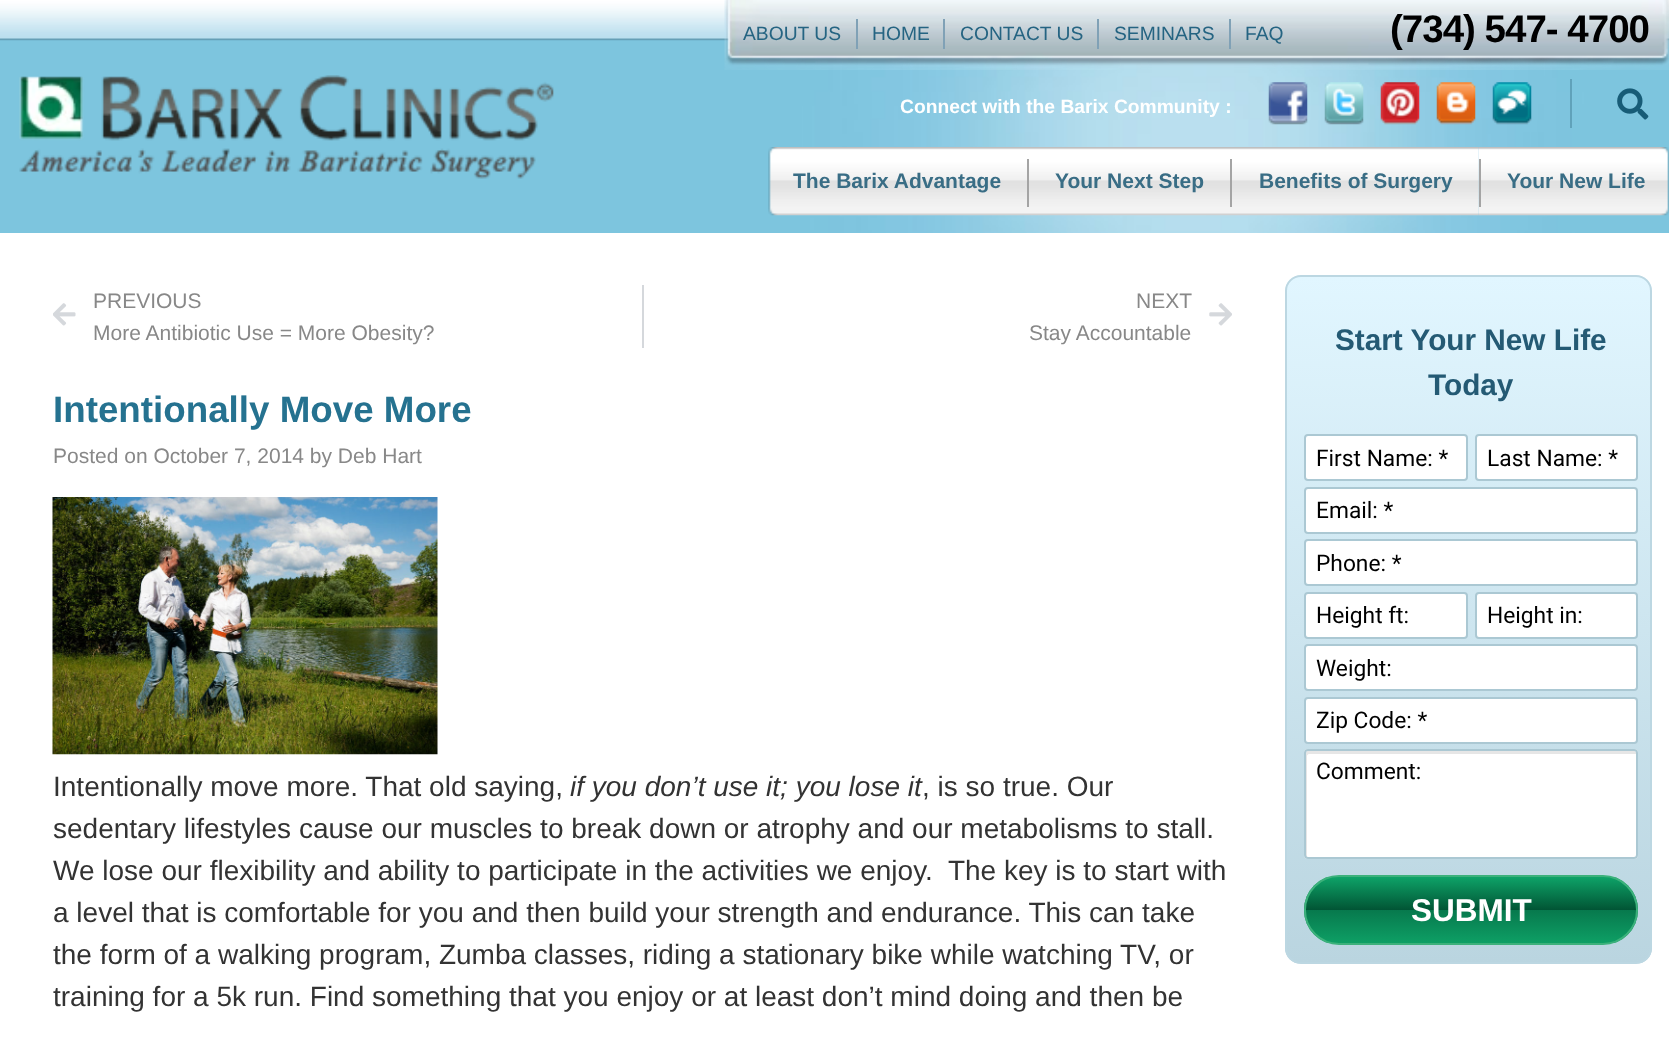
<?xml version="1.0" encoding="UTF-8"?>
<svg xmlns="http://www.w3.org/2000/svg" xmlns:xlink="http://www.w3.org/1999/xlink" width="1669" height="1041">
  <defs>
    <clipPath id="clip1"><rect x="1285" y="275" width="367" height="689" rx="16" /></clipPath>
    <linearGradient id="g1" gradientUnits="userSpaceOnUse" x1="1468" y1="277" x2="1468" y2="963"><stop offset="0" stop-color="#e1f6ff" /><stop offset="1" stop-color="#bad5e0" /></linearGradient>
    <clipPath id="clip2"><rect x="1304" y="875" width="334" height="70" rx="35" /></clipPath>
    <linearGradient id="g2" gradientUnits="userSpaceOnUse" x1="1471" y1="943" x2="1471" y2="877"><stop offset="0" stop-color="#0e9f65" /><stop offset="0.5" stop-color="#07794d" /><stop offset="0.5" stop-color="#015434" /><stop offset="1" stop-color="#0ea368" /></linearGradient>
  </defs>
  <rect width="100%" height="100%" fill="#ffffff" />
  <image x="0" y="40" width="1669" height="193" xlink:href="image1.png" />
  <image x="0" y="0" width="1669" height="41" xlink:href="image2.png" />
  <image x="19" y="75" width="535" height="104" xlink:href="image3.png" />
  <image x="724" y="0" width="945" height="70" xlink:href="image4.png" />
  <rect x="856" y="19" width="2" height="30" fill="#80a1b6" />
  <rect x="943" y="19" width="2" height="30" fill="#80a1b6" />
  <rect x="1097" y="19" width="2" height="30" fill="#80a1b6" />
  <rect x="1229" y="19" width="2" height="30" fill="#80a1b6" />
  <image x="1268" y="82" width="40" height="43" xlink:href="image5.png" />
  <image x="1324" y="82" width="40" height="43" xlink:href="image6.png" />
  <image x="1380" y="82" width="40" height="43" xlink:href="image7.png" />
  <image x="1436" y="82" width="40" height="43" xlink:href="image8.png" />
  <image x="1492" y="82" width="40" height="43" xlink:href="image9.png" />
  <rect x="1570" y="79" width="2" height="49" fill="#60a2ba" />
  <image x="1617" y="88" width="32" height="32" xlink:href="image10.png" />
  <image x="768" y="147" width="261" height="69" xlink:href="image11.png" />
  <rect x="1027" y="159" width="2" height="48" fill="#a4a4a4" />
  <image x="1029" y="147" width="203" height="69" xlink:href="image12.png" />
  <rect x="1230" y="159" width="2" height="48" fill="#a4a4a4" />
  <image x="1232" y="147" width="247" height="69" xlink:href="image13.png" />
  <image x="1478" y="147" width="191" height="69" xlink:href="image14.png" />
  <rect x="1479" y="159" width="2" height="48" fill="#a4a4a4" />
  <image x="53" y="303" width="23" height="23" xlink:href="image15.png" />
  <rect x="642" y="285" width="2" height="63" fill="#d5d8dc" />
  <image x="1209" y="303" width="23" height="23" xlink:href="image16.png" />
  <image x="52" y="497" width="386" height="258" xlink:href="image17.png" />
  <g clip-path="url(#clip1)">
    <rect x="1285" y="277" width="367" height="686" fill="url(#g1)" />
  </g>
  <rect x="1286" y="276" width="365" height="687" rx="15" fill="none" stroke="#bcd7e2" stroke-width="2" />
  <rect x="1305" y="435" width="162" height="45" rx="3" fill="#ffffff" stroke="#abc8d3" stroke-width="2" />
  <rect x="1476" y="435" width="161" height="45" rx="3" fill="#ffffff" stroke="#abc8d3" stroke-width="2" />
  <rect x="1305" y="488" width="332" height="45" rx="3" fill="#ffffff" stroke="#abc8d3" stroke-width="2" />
  <rect x="1305" y="540" width="332" height="45" rx="3" fill="#ffffff" stroke="#abc8d3" stroke-width="2" />
  <rect x="1305" y="593" width="162" height="45" rx="3" fill="#ffffff" stroke="#abc8d3" stroke-width="2" />
  <rect x="1476" y="593" width="161" height="45" rx="3" fill="#ffffff" stroke="#abc8d3" stroke-width="2" />
  <rect x="1305" y="645" width="332" height="45" rx="3" fill="#ffffff" stroke="#abc8d3" stroke-width="2" />
  <rect x="1305" y="698" width="332" height="45" rx="3" fill="#ffffff" stroke="#abc8d3" stroke-width="2" />
  <rect x="1304" y="749" width="334" height="110" rx="4" fill="#ffffff" />
  <path d="M 1309 754 h 327 v -1 c 0 -1 -1 -2 -2 -2 h -326 c -1 0 -2 1 -2 2 v 103 c 0 1 0 1 1 2 v -102 c 0 -1 1 -2 2 -2 z" fill="#e6e6e6" />
  <rect x="1305" y="750" width="332" height="108" rx="3" fill="none" stroke="#abc8d3" stroke-width="2" />
  <g clip-path="url(#clip2)">
    <rect x="1304" y="877" width="334" height="66" fill="url(#g2)" />
  </g>
  <rect x="1305" y="876" width="332" height="68" rx="34" fill="none" stroke="#3cb17b" stroke-width="2" />
  <text x="743" y="40" style="font-family: Liberation Sans; font-size: 19.25px; fill: #256482">ABOUT US</text>
  <text x="872" y="40" style="font-family: Liberation Sans; font-size: 19.25px; fill: #256482">HOME</text>
  <text x="960" y="40" style="font-family: Liberation Sans; font-size: 19.25px; fill: #256482">CONTACT US</text>
  <text x="1114" y="40" style="font-family: Liberation Sans; font-size: 19.25px; fill: #256482">SEMINARS</text>
  <text x="1245" y="40" style="font-family: Liberation Sans; font-size: 19.25px; fill: #256482">FAQ</text>
  <text x="1390" y="42" style="font-family: Liberation Sans; font-size: 38.5px; font-weight: bold; letter-spacing: -1px; fill: #000000">(734) 547- 4700</text>
  <text x="900" y="113" style="font-family: Liberation Sans; font-size: 19.25px; font-weight: bold; fill: #ffffff">Connect with the Barix Community :</text>
  <text x="793" y="188" style="font-family: Liberation Sans; font-size: 21px; font-weight: bold; fill: #396d85">The Barix Advantage</text>
  <text x="1055" y="188" style="font-family: Liberation Sans; font-size: 21px; font-weight: bold; fill: #396d85">Your Next Step</text>
  <text x="1259" y="188" style="font-family: Liberation Sans; font-size: 21px; font-weight: bold; fill: #396d85">Benefits of Surgery</text>
  <text x="1507" y="188" style="font-family: Liberation Sans; font-size: 21px; font-weight: bold; fill: #396d85">Your New Life</text>
  <text x="93" y="308" style="font-family: Liberation Sans; font-size: 21px; fill: #888888">PREVIOUS</text>
  <text x="93" y="340" style="font-family: Liberation Sans; font-size: 21px; fill: #888888">More Antibiotic Use = More Obesity?</text>
  <text x="1136" y="308" style="font-family: Liberation Sans; font-size: 21px; fill: #888888">NEXT</text>
  <text x="1029" y="340" style="font-family: Liberation Sans; font-size: 21px; fill: #888888">Stay Accountable</text>
  <text x="53" y="422" style="font-family: Liberation Sans; font-size: 36.75px; font-weight: bold; fill: #257290">Intentionally Move More</text>
  <text x="53" y="463" style="font-family: Liberation Sans; font-size: 21px; fill: #888888">Posted on October 7, 2014 by Deb Hart</text>
  <text x="53" y="796" style="font-family: Liberation Sans; font-size: 28px; fill: #333333">Intentionally move more. That old saying,</text>
  <text x="570" y="796" style="font-family: Liberation Sans; font-size: 28px; font-style: italic; fill: #333333">if you don’t use it; you lose it</text>
  <text x="922" y="796" style="font-family: Liberation Sans; font-size: 28px; fill: #333333">, is so true. Our</text>
  <text x="53" y="838" style="font-family: Liberation Sans; font-size: 28px; fill: #333333">sedentary lifestyles cause our muscles to break down or atrophy and our metabolisms to stall.</text>
  <text x="53" y="880" style="font-family: Liberation Sans; font-size: 28px; fill: #333333" xml:space="preserve">We lose our flexibility and ability to participate in the activities we enjoy.  The key is to start with</text>
  <text x="53" y="922" style="font-family: Liberation Sans; font-size: 28px; fill: #333333">a level that is comfortable for you and then build your strength and endurance. This can take</text>
  <text x="53" y="964" style="font-family: Liberation Sans; font-size: 28px; fill: #333333">the form of a walking program, Zumba classes, riding a stationary bike while watching TV, or</text>
  <text x="53" y="1006" style="font-family: Liberation Sans; font-size: 28px; fill: #333333">training for a 5k run. Find something that you enjoy or at least don’t mind doing and then be</text>
  <text x="1335" y="350" style="font-family: Liberation Sans; font-size: 29.75px; font-weight: bold; fill: #245a74">Start Your New Life</text>
  <text x="1428" y="395" style="font-family: Liberation Sans; font-size: 29.75px; font-weight: bold; fill: #245a74">Today</text>
  <text x="1316" y="466" style="font-family: Roboto; font-size: 22.75px; fill: #000000">First Name: *</text>
  <text x="1487" y="466" style="font-family: Roboto; font-size: 22.75px; fill: #000000">Last Name: *</text>
  <text x="1316" y="518" style="font-family: Roboto; font-size: 22.75px; fill: #000000">Email: *</text>
  <text x="1316" y="571" style="font-family: Roboto; font-size: 22.75px; fill: #000000">Phone: *</text>
  <text x="1316" y="623" style="font-family: Roboto; font-size: 22.75px; fill: #000000">Height ft:</text>
  <text x="1487" y="623" style="font-family: Roboto; font-size: 22.75px; fill: #000000">Height in:</text>
  <text x="1316" y="676" style="font-family: Roboto; font-size: 22.75px; fill: #000000">Weight:</text>
  <text x="1316" y="728" style="font-family: Roboto; font-size: 22.75px; fill: #000000">Zip Code: *</text>
  <text x="1316" y="779" style="font-family: Roboto; font-size: 22.75px; fill: #000000">Comment:</text>
  <text x="1411" y="921" style="font-family: Liberation Sans; font-size: 31.5px; font-weight: bold; fill: #ffffff">SUBMIT</text>
</svg>
